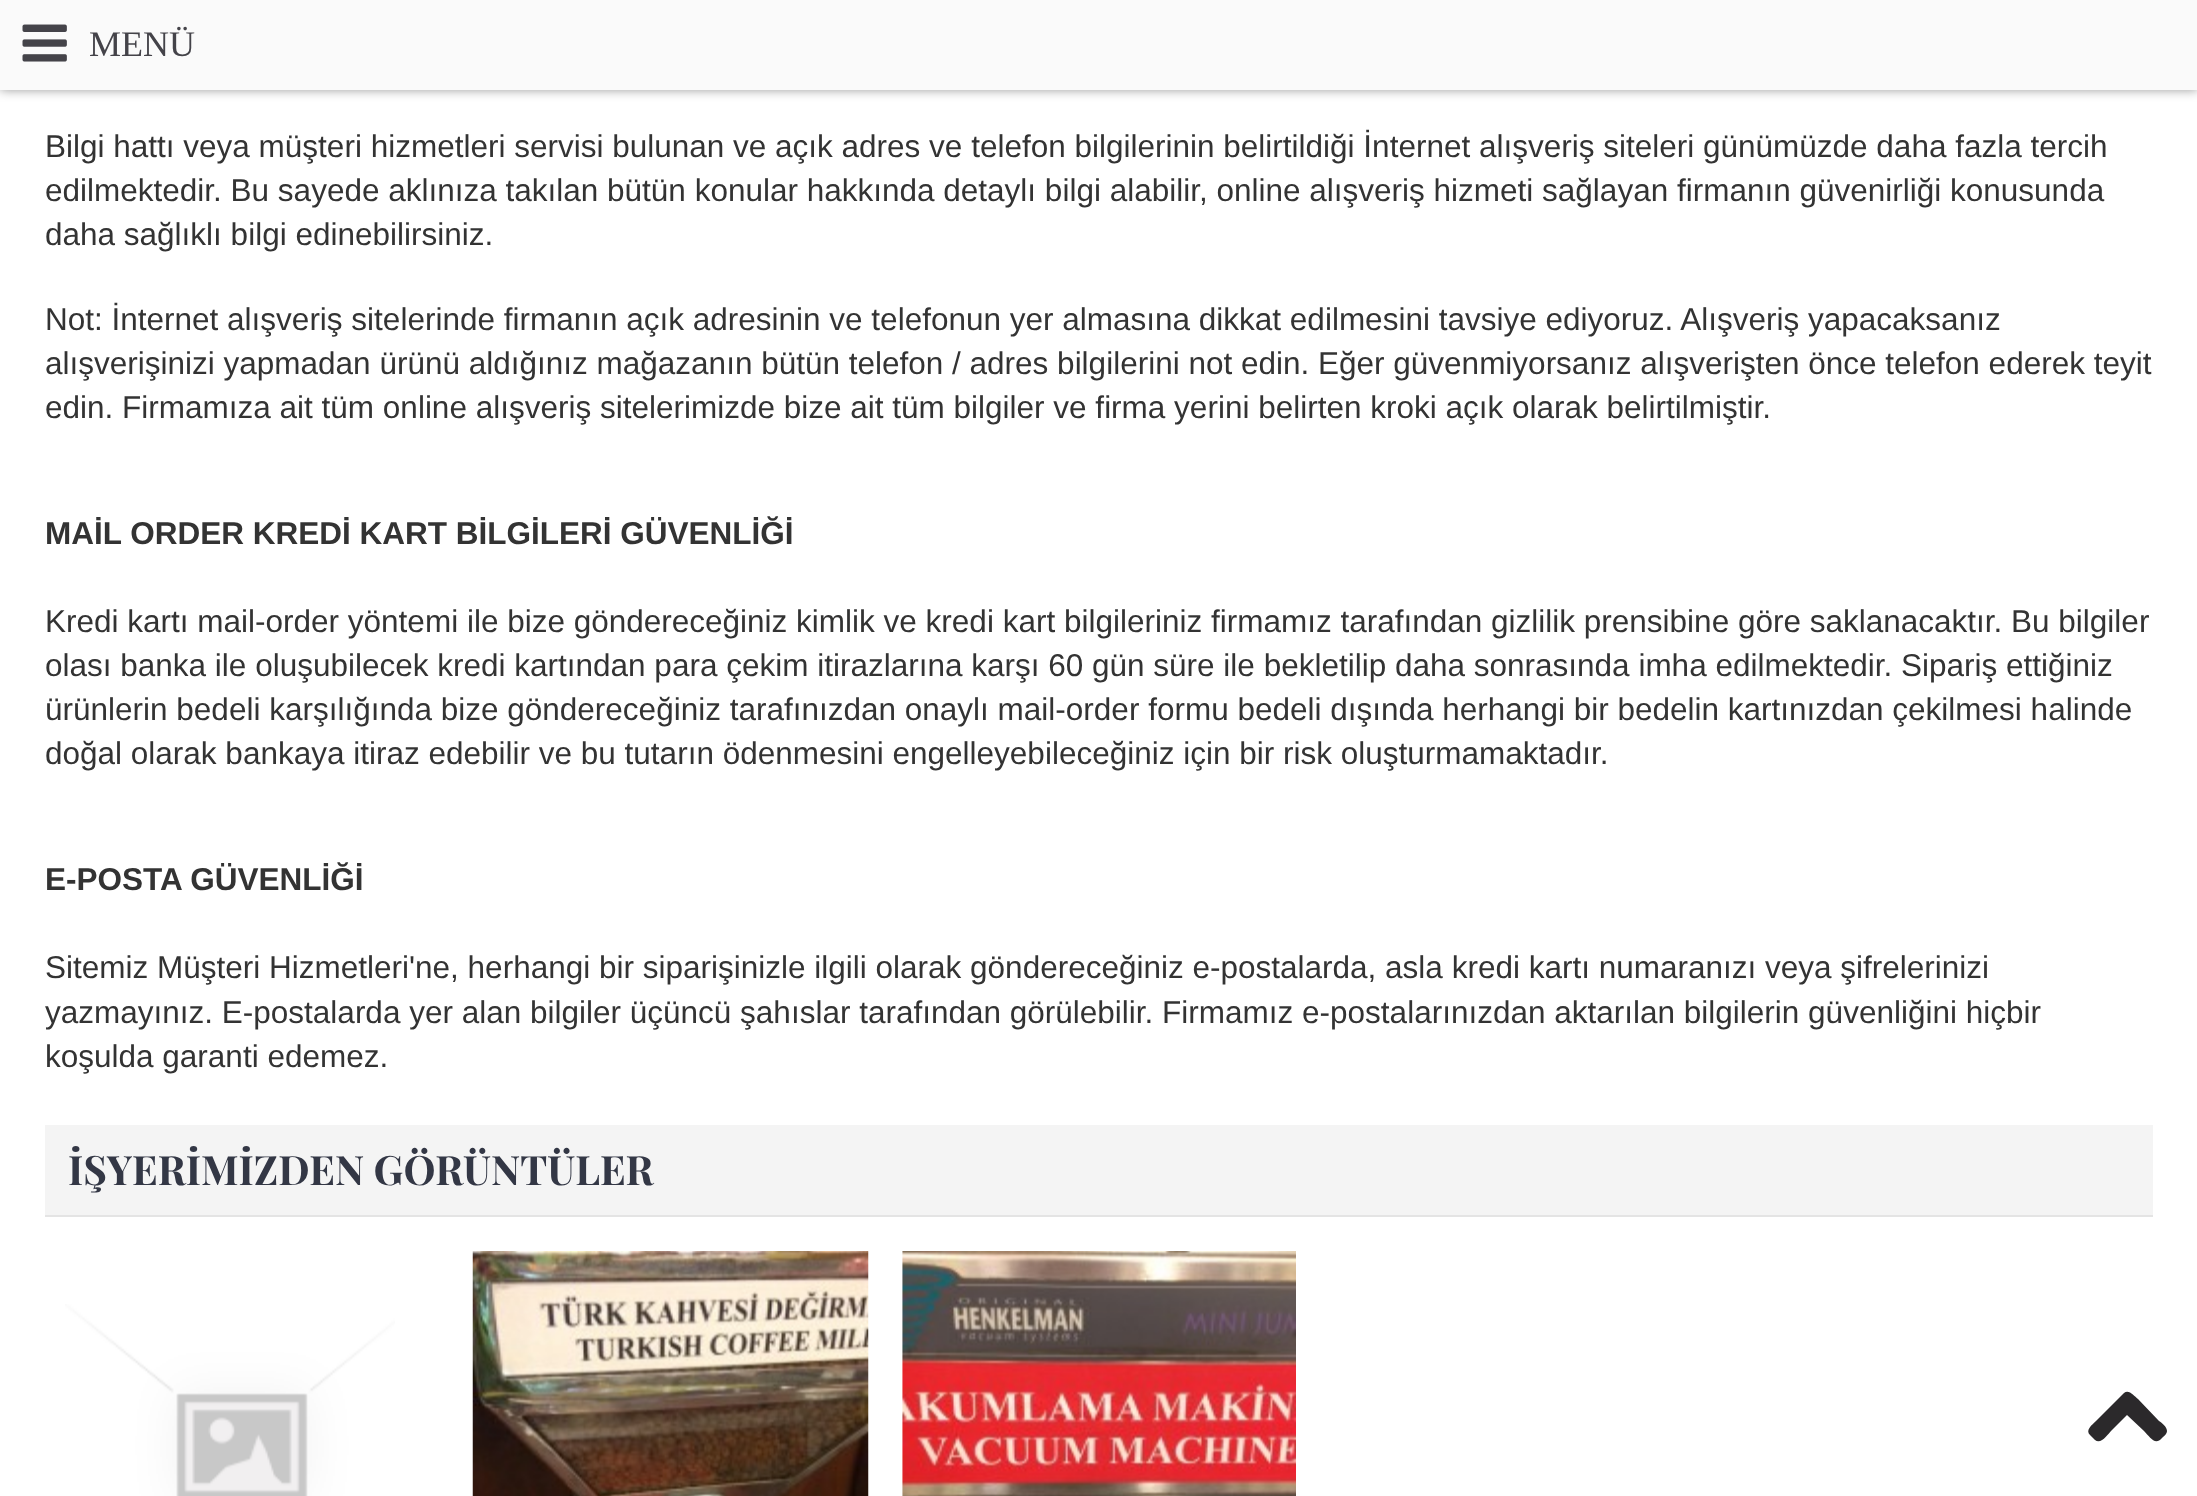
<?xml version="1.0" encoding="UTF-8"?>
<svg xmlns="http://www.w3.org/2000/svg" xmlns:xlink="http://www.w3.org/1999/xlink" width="2197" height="1496">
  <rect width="100%" height="100%" fill="#ffffff" />
  <rect width="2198" height="90" fill="#000000" fill-opacity="0.4" filter="blur(5.5px)" />
  <rect width="2197" height="90" fill="#fafafa" />
  <image x="22" y="24" width="45" height="38" xlink:href="image1.png" />
  <rect x="45" y="1125" width="2108" height="90" fill="#f4f4f4" />
  <rect x="45" y="1215" width="2108" height="2" fill="#e4e4e4" />
  <image x="65" y="1304" width="330" height="192" xlink:href="image2.png" />
  <image x="472" y="1251" width="397" height="245" xlink:href="image3.png" />
  <image x="902" y="1251" width="394" height="245" xlink:href="image4.png" />
  <path d="M 2167 1431 c 0 3 -3 5 -5 7 c -7 8 -12 -1 -18 -7 l -17 -16 l -16 16 c -3 3 -10 14 -16 9 l -5 -5 c -5 -5 2 -10 6 -14 l 28 -28 c 5 -4 10 3 14 6 l 21 22 c 3 2 8 6 8 10 z" fill="#2b292b" />
  <text x="89" y="56" style="font-family: Liberation Serif; font-size: 36px; fill: #444349">MENÜ</text>
  <text x="45" y="157" style="font-family: Liberation Sans; font-size: 31.5px; fill: #333333">Bilgi hattı veya müşteri hizmetleri servisi bulunan ve açık adres ve telefon bilgilerinin belirtildiği İnternet alışveriş siteleri günümüzde daha fazla tercih</text>
  <text x="45" y="201" style="font-family: Liberation Sans; font-size: 31.5px; fill: #333333">edilmektedir. Bu sayede aklınıza takılan bütün konular hakkında detaylı bilgi alabilir, online alışveriş hizmeti sağlayan firmanın güvenirliği konusunda</text>
  <text x="45" y="245" style="font-family: Liberation Sans; font-size: 31.5px; fill: #333333">daha sağlıklı bilgi edinebilirsiniz.</text>
  <text x="45" y="330" style="font-family: Liberation Sans; font-size: 31.5px; fill: #333333">Not: İnternet alışveriş sitelerinde firmanın açık adresinin ve telefonun yer almasına dikkat edilmesini tavsiye ediyoruz. Alışveriş yapacaksanız</text>
  <text x="45" y="374" style="font-family: Liberation Sans; font-size: 31.5px; fill: #333333">alışverişinizi yapmadan ürünü aldığınız mağazanın bütün telefon / adres bilgilerini not edin. Eğer güvenmiyorsanız alışverişten önce telefon ederek teyit</text>
  <text x="45" y="418" style="font-family: Liberation Sans; font-size: 31.5px; fill: #333333">edin. Firmamıza ait tüm online alışveriş sitelerimizde bize ait tüm bilgiler ve firma yerini belirten kroki açık olarak belirtilmiştir.</text>
  <text x="45" y="544" style="font-family: Liberation Sans; font-size: 31.5px; font-weight: bold; fill: #333333">MAİL ORDER KREDİ KART BİLGİLERİ GÜVENLİĞİ</text>
  <text x="45" y="632" style="font-family: Liberation Sans; font-size: 31.5px; fill: #333333">Kredi kartı mail-order yöntemi ile bize göndereceğiniz kimlik ve kredi kart bilgileriniz firmamız tarafından gizlilik prensibine göre saklanacaktır. Bu bilgiler</text>
  <text x="45" y="676" style="font-family: Liberation Sans; font-size: 31.5px; fill: #333333">olası banka ile oluşubilecek kredi kartından para çekim itirazlarına karşı 60 gün süre ile bekletilip daha sonrasında imha edilmektedir. Sipariş ettiğiniz</text>
  <text x="45" y="720" style="font-family: Liberation Sans; font-size: 31.5px; fill: #333333">ürünlerin bedeli karşılığında bize göndereceğiniz tarafınızdan onaylı mail-order formu bedeli dışında herhangi bir bedelin kartınızdan çekilmesi halinde</text>
  <text x="45" y="764" style="font-family: Liberation Sans; font-size: 31.5px; fill: #333333">doğal olarak bankaya itiraz edebilir ve bu tutarın ödenmesini engelleyebileceğiniz için bir risk oluşturmamaktadır.</text>
  <text x="45" y="890" style="font-family: Liberation Sans; font-size: 31.5px; font-weight: bold; fill: #333333">E-POSTA GÜVENLİĞİ</text>
  <text x="45" y="978" style="font-family: Liberation Sans; font-size: 31.5px; fill: #333333">Sitemiz Müşteri Hizmetleri'ne, herhangi bir siparişinizle ilgili olarak göndereceğiniz e-postalarda, asla kredi kartı numaranızı veya şifrelerinizi</text>
  <text x="45" y="1023" style="font-family: Liberation Sans; font-size: 31.5px; fill: #333333">yazmayınız. E-postalarda yer alan bilgiler üçüncü şahıslar tarafından görülebilir. Firmamız e-postalarınızdan aktarılan bilgilerin güvenliğini hiçbir</text>
  <text x="45" y="1067" style="font-family: Liberation Sans; font-size: 31.5px; fill: #333333">koşulda garanti edemez.</text>
  <text x="68" y="1185" style="font-family: Playfair Display; font-size: 40.5px; font-weight: bold; fill: #333745">İŞYERİMİZDEN GÖRÜNTÜLER</text>
</svg>
